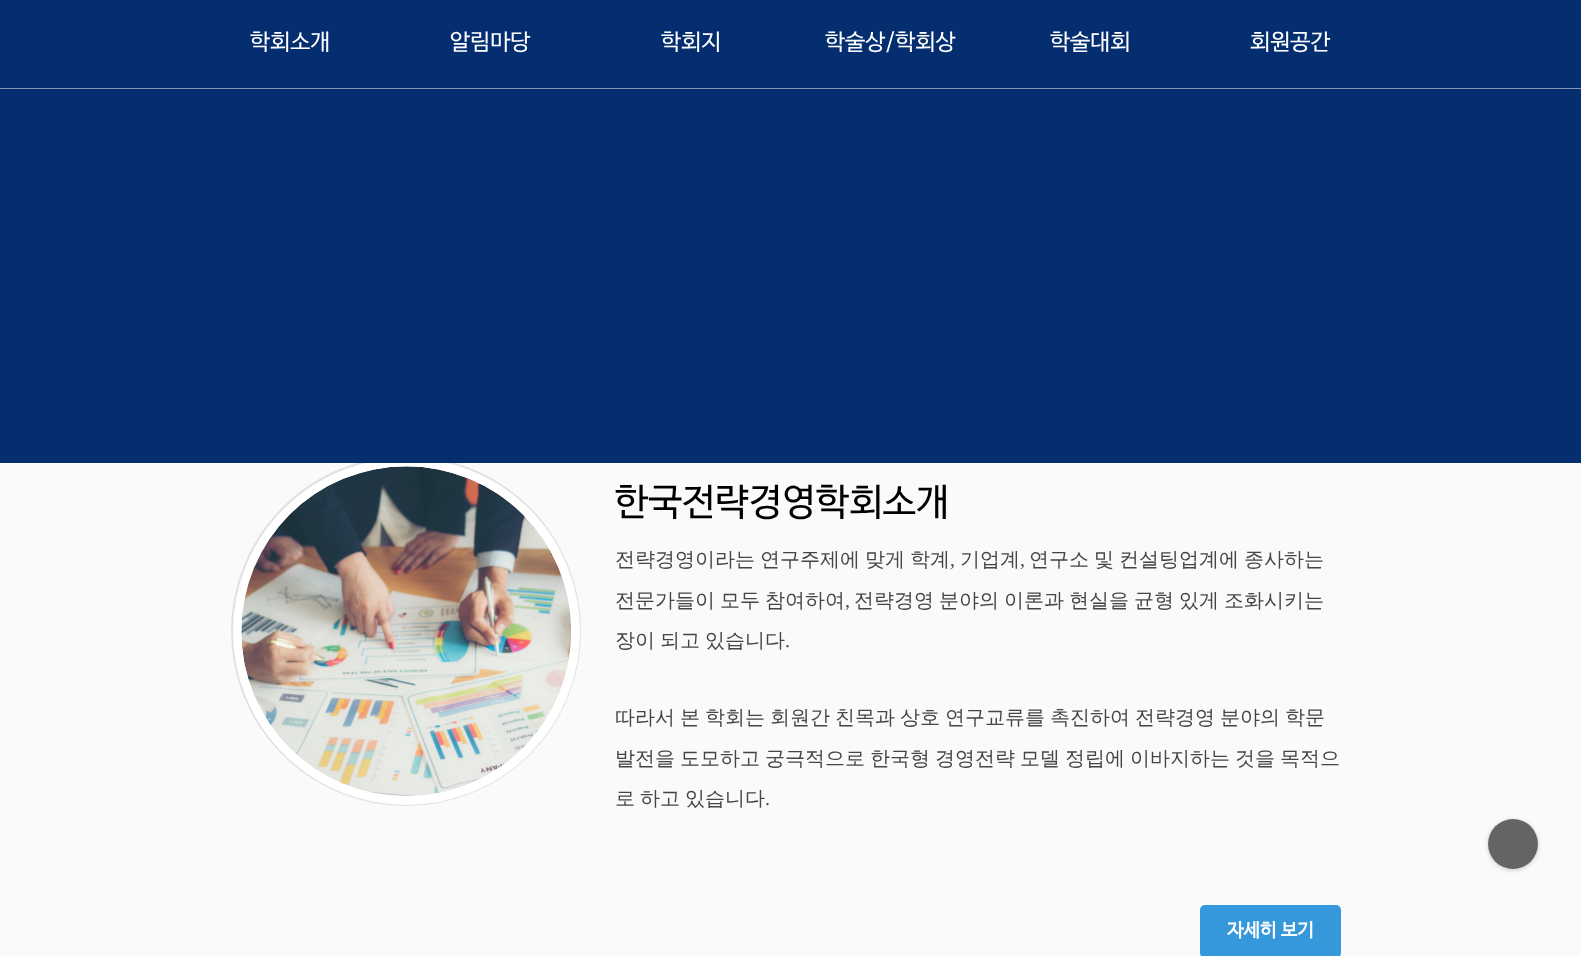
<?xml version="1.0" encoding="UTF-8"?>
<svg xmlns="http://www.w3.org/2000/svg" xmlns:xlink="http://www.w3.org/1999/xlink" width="1581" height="956">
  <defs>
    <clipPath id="clip1"><path d="M 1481 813 h 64 v 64 h -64 z m 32 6 c 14 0 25 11 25 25 c 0 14 -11 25 -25 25 c -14 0 -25 -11 -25 -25 c 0 -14 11 -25 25 -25 z" clip-rule="evenodd" /></clipPath>
  </defs>
  <rect width="100%" height="100%" fill="#fafafa" />
  <circle cx="406" cy="631" r="170" fill="none" stroke="#e1e1e1" stroke-width="10" />
  <circle cx="406.5" cy="631.5" r="169" fill="none" stroke="#ffffff" stroke-width="9" />
  <rect width="1581" height="463" fill="#042e6f" />
  <rect y="88" width="1581" height="1" fill="#8297b7" />
  <image x="241" y="466" width="330" height="330" xlink:href="image1.png" />
  <rect x="1200" y="905" width="141" height="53" rx="5" fill="#3498db" />
  <g clip-path="url(#clip1)">
    <rect x="1488" y="820" width="50" height="50" rx="25" fill="#000000" fill-opacity="0.2" filter="blur(2px)" />
  </g>
  <circle cx="1513" cy="844" r="25" fill="#000000" fill-opacity="0.6" />
  <text x="250" y="49" style="font-family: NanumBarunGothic; font-size: 22.5px; fill: #ffffff">학회소개</text>
  <text x="450" y="49" style="font-family: NanumBarunGothic; font-size: 22.5px; fill: #ffffff">알림마당</text>
  <text x="661" y="49" style="font-family: NanumBarunGothic; font-size: 22.5px; fill: #ffffff">학회지</text>
  <text x="825" y="49" style="font-family: NanumBarunGothic; font-size: 22.5px; fill: #ffffff">학술상/학회상</text>
  <text x="1050" y="49" style="font-family: NanumBarunGothic; font-size: 22.5px; fill: #ffffff">학술대회</text>
  <text x="1250" y="49" style="font-family: NanumBarunGothic; font-size: 22.5px; fill: #ffffff">회원공간</text>
  <text x="615" y="514" style="font-family: NanumBarunGothic; font-size: 37.5px; fill: #000000">한국전략경영학회소개</text>
  <text x="615" y="566" word-spacing="-1" style="font-family: WenQuanYi Zen Hei; font-size: 20px; font-weight: 500; fill: #454545">전략경영이라는 연구주제에 맞게 학계</text>
  <text x="950" y="566" style="font-family: Liberation Serif; font-size: 20px; fill: #454545">,</text>
  <text x="960" y="566" style="font-family: WenQuanYi Zen Hei; font-size: 20px; font-weight: 500; fill: #454545">기업계</text>
  <text x="1020" y="566" style="font-family: Liberation Serif; font-size: 20px; fill: #454545">,</text>
  <text x="1029" y="566" word-spacing="-1" style="font-family: WenQuanYi Zen Hei; font-size: 20px; font-weight: 500; fill: #454545">연구소 및 컨설팅업계에 종사하는</text>
  <text x="615" y="607" word-spacing="-1" style="font-family: WenQuanYi Zen Hei; font-size: 20px; font-weight: 500; fill: #454545">전문가들이 모두 참여하여</text>
  <text x="845" y="607" style="font-family: Liberation Serif; font-size: 20px; fill: #454545">,</text>
  <text x="854" y="607" word-spacing="-1" style="font-family: WenQuanYi Zen Hei; font-size: 20px; font-weight: 500; fill: #454545">전략경영 분야의 이론과 현실을 균형 있게 조화시키는</text>
  <text x="615" y="647" word-spacing="-1" style="font-family: WenQuanYi Zen Hei; font-size: 20px; font-weight: 500; fill: #454545">장이 되고 있습니다</text>
  <text x="785" y="647" style="font-family: Liberation Serif; font-size: 20px; fill: #454545">.</text>
  <text x="615" y="724" word-spacing="-1" style="font-family: WenQuanYi Zen Hei; font-size: 20px; font-weight: 500; fill: #454545">따라서 본 학회는 회원간 친목과 상호 연구교류를 촉진하여 전략경영 분야의 학문</text>
  <text x="615" y="765" word-spacing="-1" style="font-family: WenQuanYi Zen Hei; font-size: 20px; font-weight: 500; fill: #454545">발전을 도모하고 궁극적으로 한국형 경영전략 모델 정립에 이바지하는 것을 목적으</text>
  <text x="615" y="805" word-spacing="-1" style="font-family: WenQuanYi Zen Hei; font-size: 20px; font-weight: 500; fill: #454545">로 하고 있습니다</text>
  <text x="765" y="805" style="font-family: Liberation Serif; font-size: 20px; fill: #454545">.</text>
  <text x="1227" y="936" style="font-family: NanumBarunGothic; font-size: 18.5px; font-weight: bold; fill: #ffffff">자세히 보기</text>
</svg>
